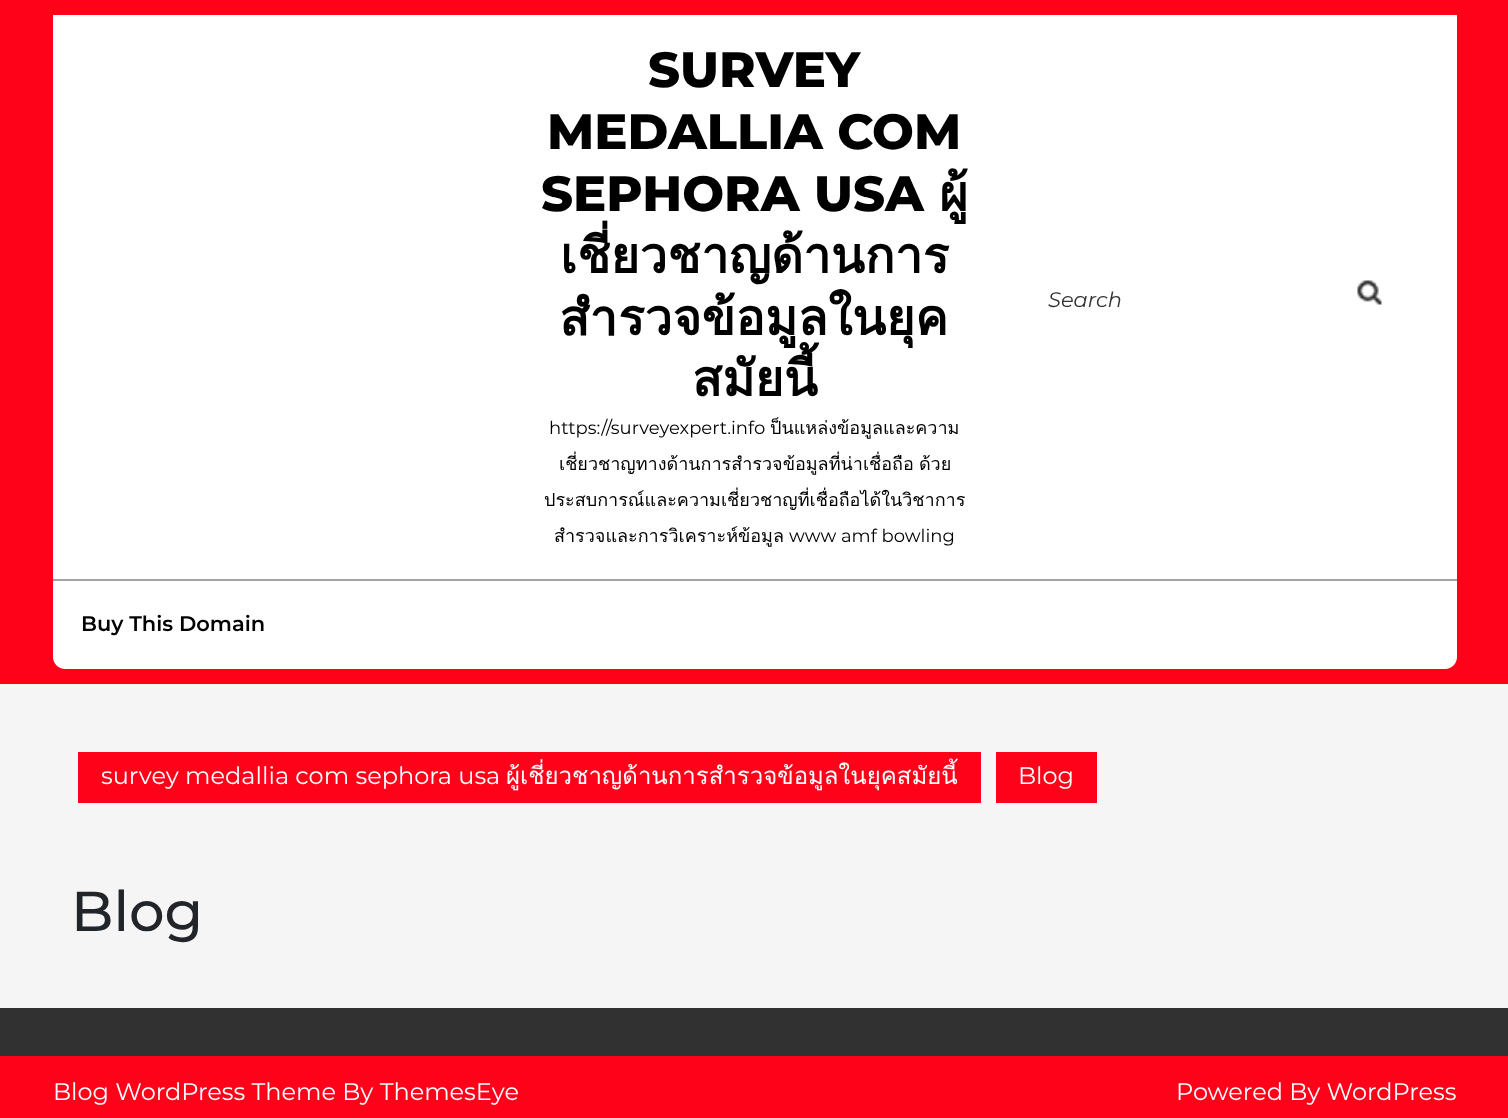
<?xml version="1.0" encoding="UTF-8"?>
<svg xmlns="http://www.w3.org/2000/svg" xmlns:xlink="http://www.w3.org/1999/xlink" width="1508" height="1118">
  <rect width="100%" height="100%" fill="#f5f5f5" />
  <rect width="1508" height="684" fill="#fe0219" />
  <path d="M 53 15 h 1404 v 642 c 0 6.5 -5.5 12 -12 12 h -1380 c -6.5 0 -12 -5.5 -12 -12 z" fill="#ffffff" />
  <image x="1357" y="280" width="25" height="25" xlink:href="image1.png" />
  <rect x="53" y="579" width="1404" height="2" fill="#a3a3a3" />
  <rect x="78" y="752" width="903" height="51" fill="#fe0219" />
  <rect x="996" y="752" width="101" height="51" fill="#fe0219" />
  <rect y="1008" width="1508" height="48" fill="#313131" />
  <rect y="1056" width="1508" height="62" fill="#fe0219" />
  <text x="648" y="87" style="font-family: Montserrat; font-size: 49.5px; font-weight: 800; fill: #000000">SURVEY</text>
  <text x="547" y="149" style="font-family: Montserrat; font-size: 49.5px; font-weight: 800; fill: #000000">MEDALLIA COM</text>
  <text x="541" y="211" style="font-family: Montserrat; font-size: 49.5px; font-weight: 800; fill: #000000">SEPHORA USA</text>
  <text x="939" y="211" style="font-family: Loma; font-size: 49.5px; font-weight: bold; fill: #000000">ผู้</text>
  <text x="560" y="273" style="font-family: Loma; font-size: 49.5px; font-weight: bold; fill: #000000">เชี่ยวชาญด้านการ</text>
  <text x="560" y="335" style="font-family: Loma; font-size: 49.5px; font-weight: bold; fill: #000000">สำรวจข้อมูลในยุค</text>
  <text x="692" y="396" style="font-family: Loma; font-size: 49.5px; font-weight: bold; fill: #000000">สมัยนี้</text>
  <text x="549" y="434" style="font-family: Montserrat; font-size: 18px; fill: #000000">https://surveyexpert.info</text>
  <text x="770" y="434" style="font-family: Loma; font-size: 18px; fill: #000000">ป็นแหล่งข้อมูลและความ</text>
  <text x="559" y="470" word-spacing="-1" style="font-family: Loma; font-size: 18px; fill: #000000">เชี่ยวชาญทางด้านการสำรวจข้อมูลที่น่าเชื่อถือ ด้วย</text>
  <text x="544" y="506" style="font-family: Loma; font-size: 18px; fill: #000000">ประสบการณ์และความเชี่ยวชาญที่เชื่อถือได้ในวิชาการ</text>
  <text x="554" y="542" style="font-family: Loma; font-size: 18px; fill: #000000">สำรวจและการวิเคราะห์ข้อมูล</text>
  <text x="789" y="542" style="font-family: Montserrat; font-size: 18px; fill: #000000">www amf bowling</text>
  <text x="1048" y="307" style="font-family: Montserrat; font-size: 21px; font-style: italic; fill: #313131">Search</text>
  <text x="81" y="631" style="font-family: Montserrat; font-size: 21px; font-weight: 600; fill: #000000">Buy This Domain</text>
  <text x="101" y="784" style="font-family: Montserrat; font-size: 24px; fill: #ffffff">survey medallia com sephora usa</text>
  <text x="506" y="784" style="font-family: Loma; font-size: 24px; fill: #ffffff">ผู้เชี่ยวชาญด้านการสำรวจข้อมูลในยุคสมัยนี้</text>
  <text x="1018" y="784" style="font-family: Montserrat; font-size: 24px; fill: #ffffff">Blog</text>
  <text x="71" y="931" style="font-family: Montserrat; font-size: 56px; font-weight: 500; fill: #212529">Blog</text>
  <text x="53" y="1100" style="font-family: Montserrat; font-size: 24px; fill: #ffffff">Blog WordPress Theme By ThemesEye</text>
  <text x="1176" y="1100" style="font-family: Montserrat; font-size: 24px; fill: #ffffff">Powered By WordPress</text>
</svg>
